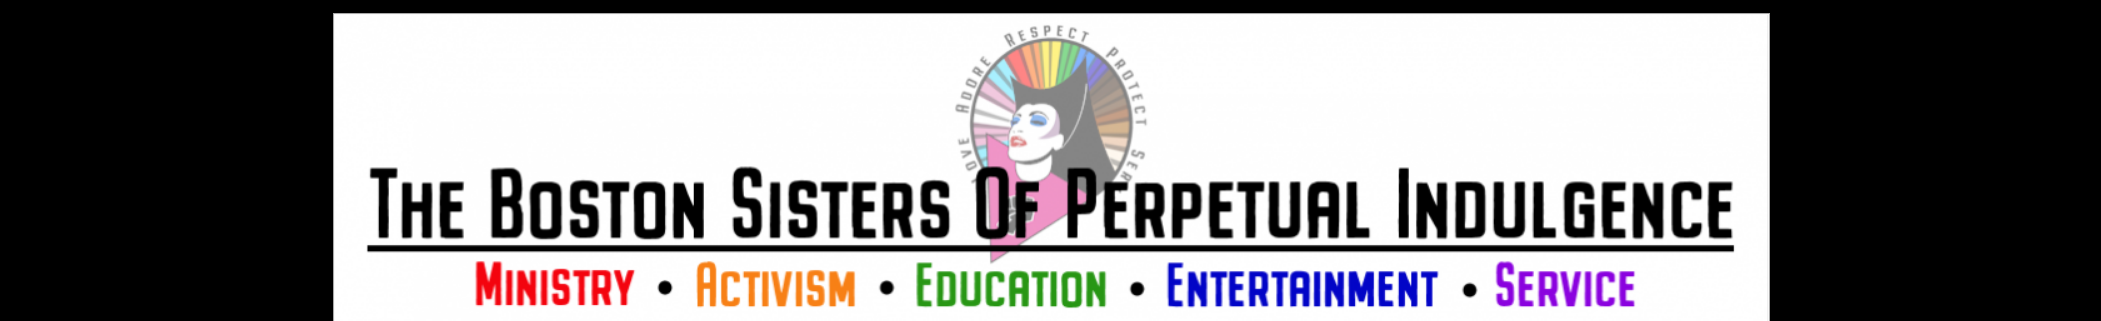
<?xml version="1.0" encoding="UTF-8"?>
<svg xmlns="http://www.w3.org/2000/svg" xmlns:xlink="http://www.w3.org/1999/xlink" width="2101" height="321">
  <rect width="100%" height="100%" fill="#000000" />
  <rect x="1767" y="15" width="1" height="306" fill="#e0e0e0" />
  <rect x="333" y="13" width="1437" height="1" fill="#a8a8a8" />
  <rect x="1769" y="13" width="1" height="308" fill="#a8a8a8" />
  <rect x="333" y="13" width="1" height="308" fill="#a8a8a8" />
  <rect x="334" y="14" width="1435" height="1" fill="#f9f9f9" />
  <rect x="1768" y="14" width="1" height="307" fill="#f9f9f9" />
  <rect x="334" y="14" width="1" height="307" fill="#f9f9f9" />
  <image x="335" y="15" width="1433" height="306" xlink:href="image1.png" />
</svg>
